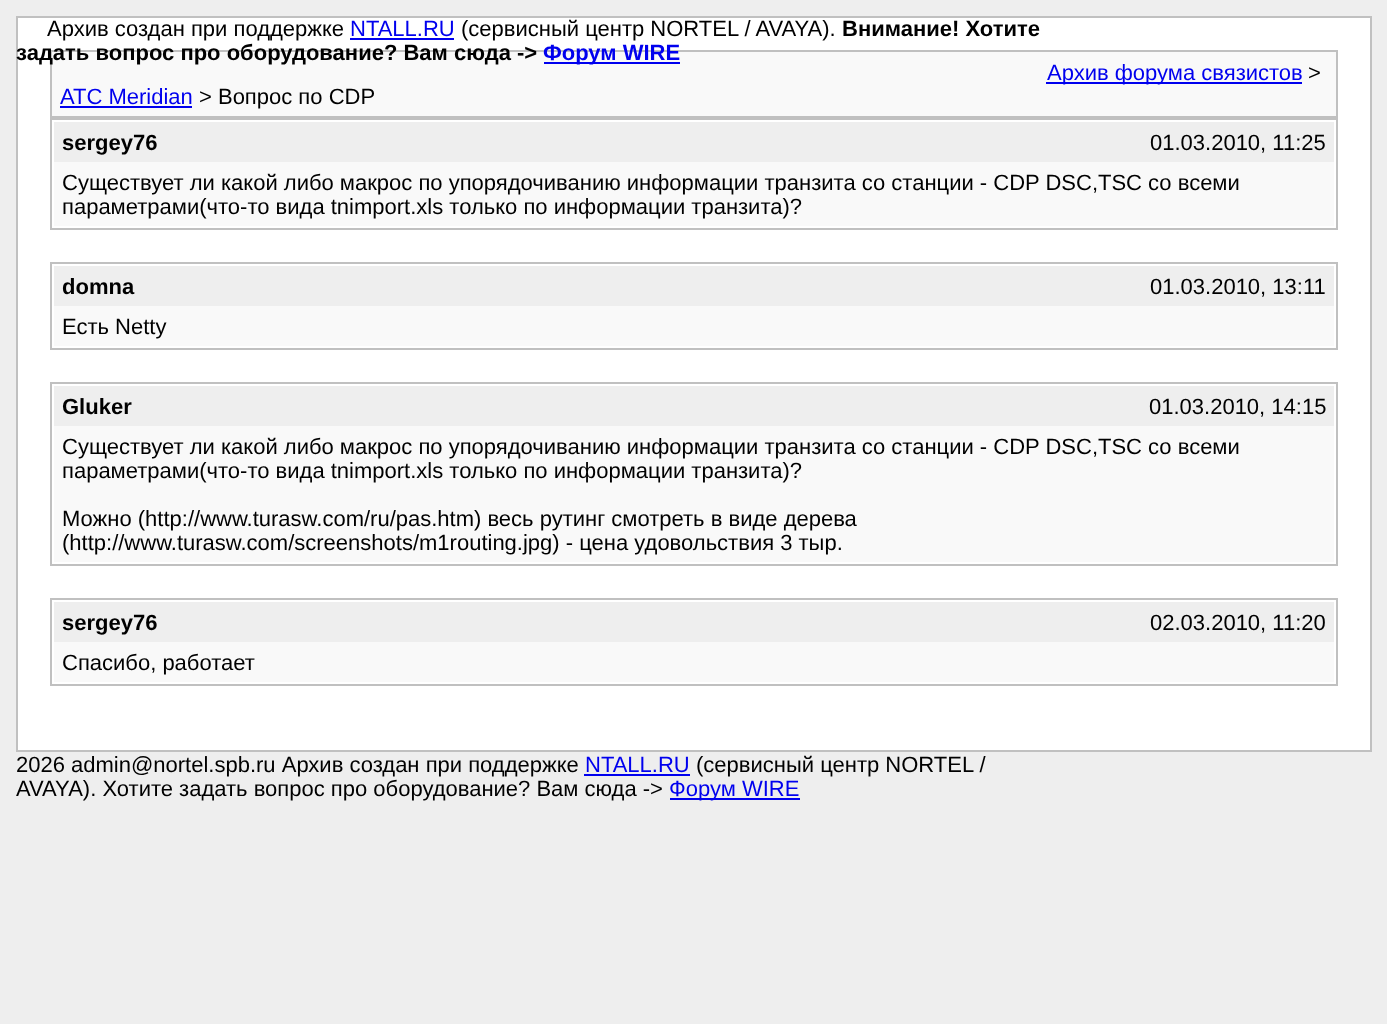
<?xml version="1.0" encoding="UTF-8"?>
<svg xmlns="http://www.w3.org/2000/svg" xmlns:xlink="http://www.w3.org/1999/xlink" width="1387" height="1024">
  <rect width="100%" height="100%" fill="#eeeeee" />
  <rect x="17" y="17" width="1354" height="734" fill="#ffffff" stroke="#c0c0c0" stroke-width="2" />
  <rect x="350" y="38" width="104" height="2" fill="#0000ee" />
  <rect x="51" y="51" width="1286" height="66" fill="#f9f9f9" stroke="#c0c0c0" stroke-width="2" />
  <rect x="544" y="62" width="136" height="2" fill="#0000ee" />
  <rect x="1046" y="82" width="256" height="2" fill="#0000ee" />
  <rect x="60" y="106" width="132" height="2" fill="#0000ee" />
  <rect x="51" y="119" width="1286" height="110" fill="none" stroke="#c0c0c0" stroke-width="2" />
  <rect x="54" y="122" width="1280" height="40" fill="#eeeeee" />
  <rect x="54" y="162" width="1280" height="64" fill="#f9f9f9" />
  <rect x="51" y="263" width="1286" height="86" fill="none" stroke="#c0c0c0" stroke-width="2" />
  <rect x="54" y="266" width="1280" height="40" fill="#eeeeee" />
  <rect x="54" y="306" width="1280" height="40" fill="#f9f9f9" />
  <rect x="51" y="383" width="1286" height="182" fill="none" stroke="#c0c0c0" stroke-width="2" />
  <rect x="54" y="386" width="1280" height="40" fill="#eeeeee" />
  <rect x="54" y="426" width="1280" height="136" fill="#f9f9f9" />
  <rect x="51" y="599" width="1286" height="86" fill="none" stroke="#c0c0c0" stroke-width="2" />
  <rect x="54" y="602" width="1280" height="40" fill="#eeeeee" />
  <rect x="54" y="642" width="1280" height="40" fill="#f9f9f9" />
  <rect x="584" y="774" width="106" height="2" fill="#0000ee" />
  <rect x="670" y="798" width="130" height="2" fill="#0000ee" />
  <text x="47" y="36" style="font-family: Liberation Sans; font-size: 22px; fill: #000000">Архив создан при поддержке</text>
  <text x="350" y="36" style="font-family: Liberation Sans; font-size: 22px; fill: #0000ee">NTALL.RU</text>
  <text x="461" y="36" style="font-family: Liberation Sans; font-size: 22px; fill: #000000">(сервисный центр NORTEL / AVAYA).</text>
  <text x="842" y="36" style="font-family: Liberation Sans; font-size: 22px; font-weight: bold; fill: #000000">Внимание! Хотите</text>
  <text x="16" y="60" style="font-family: Liberation Sans; font-size: 22px; font-weight: bold; fill: #000000">задать вопрос про оборудование? Вам сюда -&gt;</text>
  <text x="543" y="60" style="font-family: Liberation Sans; font-size: 22px; font-weight: bold; fill: #0000ee">Форум WIRE</text>
  <text x="1047" y="80" style="font-family: Liberation Sans; font-size: 22px; fill: #0000ee">Архив форума связистов</text>
  <text x="1308" y="80" style="font-family: Liberation Sans; font-size: 22px; fill: #000000">&gt;</text>
  <text x="60" y="104" style="font-family: Liberation Sans; font-size: 22px; fill: #0000ee">АТС Meridian</text>
  <text x="199" y="104" style="font-family: Liberation Sans; font-size: 22px; fill: #000000">&gt; Вопрос по CDP</text>
  <text x="62" y="150" style="font-family: Liberation Sans; font-size: 22px; font-weight: bold; fill: #000000">sergey76</text>
  <text x="1150" y="150" style="font-family: Liberation Sans; font-size: 22px; fill: #000000">01.03.2010, 11:25</text>
  <text x="62" y="190" style="font-family: Liberation Sans; font-size: 22px; fill: #000000">Существует ли какой либо макрос по упорядочиванию информации транзита со станции - CDP DSC,TSC со всеми</text>
  <text x="62" y="214" style="font-family: Liberation Sans; font-size: 22px; fill: #000000">параметрами(что-то вида tnimport.xls только по информации транзита)?</text>
  <text x="62" y="294" style="font-family: Liberation Sans; font-size: 22px; font-weight: bold; fill: #000000">domna</text>
  <text x="1150" y="294" style="font-family: Liberation Sans; font-size: 22px; fill: #000000">01.03.2010, 13:11</text>
  <text x="62" y="334" style="font-family: Liberation Sans; font-size: 22px; fill: #000000">Есть Netty</text>
  <text x="62" y="414" style="font-family: Liberation Sans; font-size: 22px; font-weight: bold; fill: #000000">Gluker</text>
  <text x="1149" y="414" style="font-family: Liberation Sans; font-size: 22px; fill: #000000">01.03.2010, 14:15</text>
  <text x="62" y="454" style="font-family: Liberation Sans; font-size: 22px; fill: #000000">Существует ли какой либо макрос по упорядочиванию информации транзита со станции - CDP DSC,TSC со всеми</text>
  <text x="62" y="478" style="font-family: Liberation Sans; font-size: 22px; fill: #000000">параметрами(что-то вида tnimport.xls только по информации транзита)?</text>
  <text x="62" y="526" style="font-family: Liberation Sans; font-size: 22px; fill: #000000">Можно (http://www.turasw.com/ru/pas.htm) весь рутинг смотреть в виде дерева</text>
  <text x="62" y="550" style="font-family: Liberation Sans; font-size: 22px; fill: #000000">(http://www.turasw.com/screenshots/m1routing.jpg) - цена удовольствия 3 тыр.</text>
  <text x="62" y="630" style="font-family: Liberation Sans; font-size: 22px; font-weight: bold; fill: #000000">sergey76</text>
  <text x="1150" y="630" style="font-family: Liberation Sans; font-size: 22px; fill: #000000">02.03.2010, 11:20</text>
  <text x="62" y="670" style="font-family: Liberation Sans; font-size: 22px; fill: #000000">Спасибо, работает</text>
  <text x="16" y="772" style="font-family: Liberation Sans; font-size: 22px; fill: #000000">2026 admin@nortel.spb.ru Архив создан при поддержке</text>
  <text x="585" y="772" style="font-family: Liberation Sans; font-size: 22px; fill: #0000ee">NTALL.RU</text>
  <text x="696" y="772" style="font-family: Liberation Sans; font-size: 22px; fill: #000000">(сервисный центр NORTEL /</text>
  <text x="16" y="796" style="font-family: Liberation Sans; font-size: 22px; fill: #000000">AVAYA). Хотите задать вопрос про оборудование? Вам сюда -&gt;</text>
  <text x="669" y="796" style="font-family: Liberation Sans; font-size: 22px; fill: #0000ee">Форум WIRE</text>
</svg>
